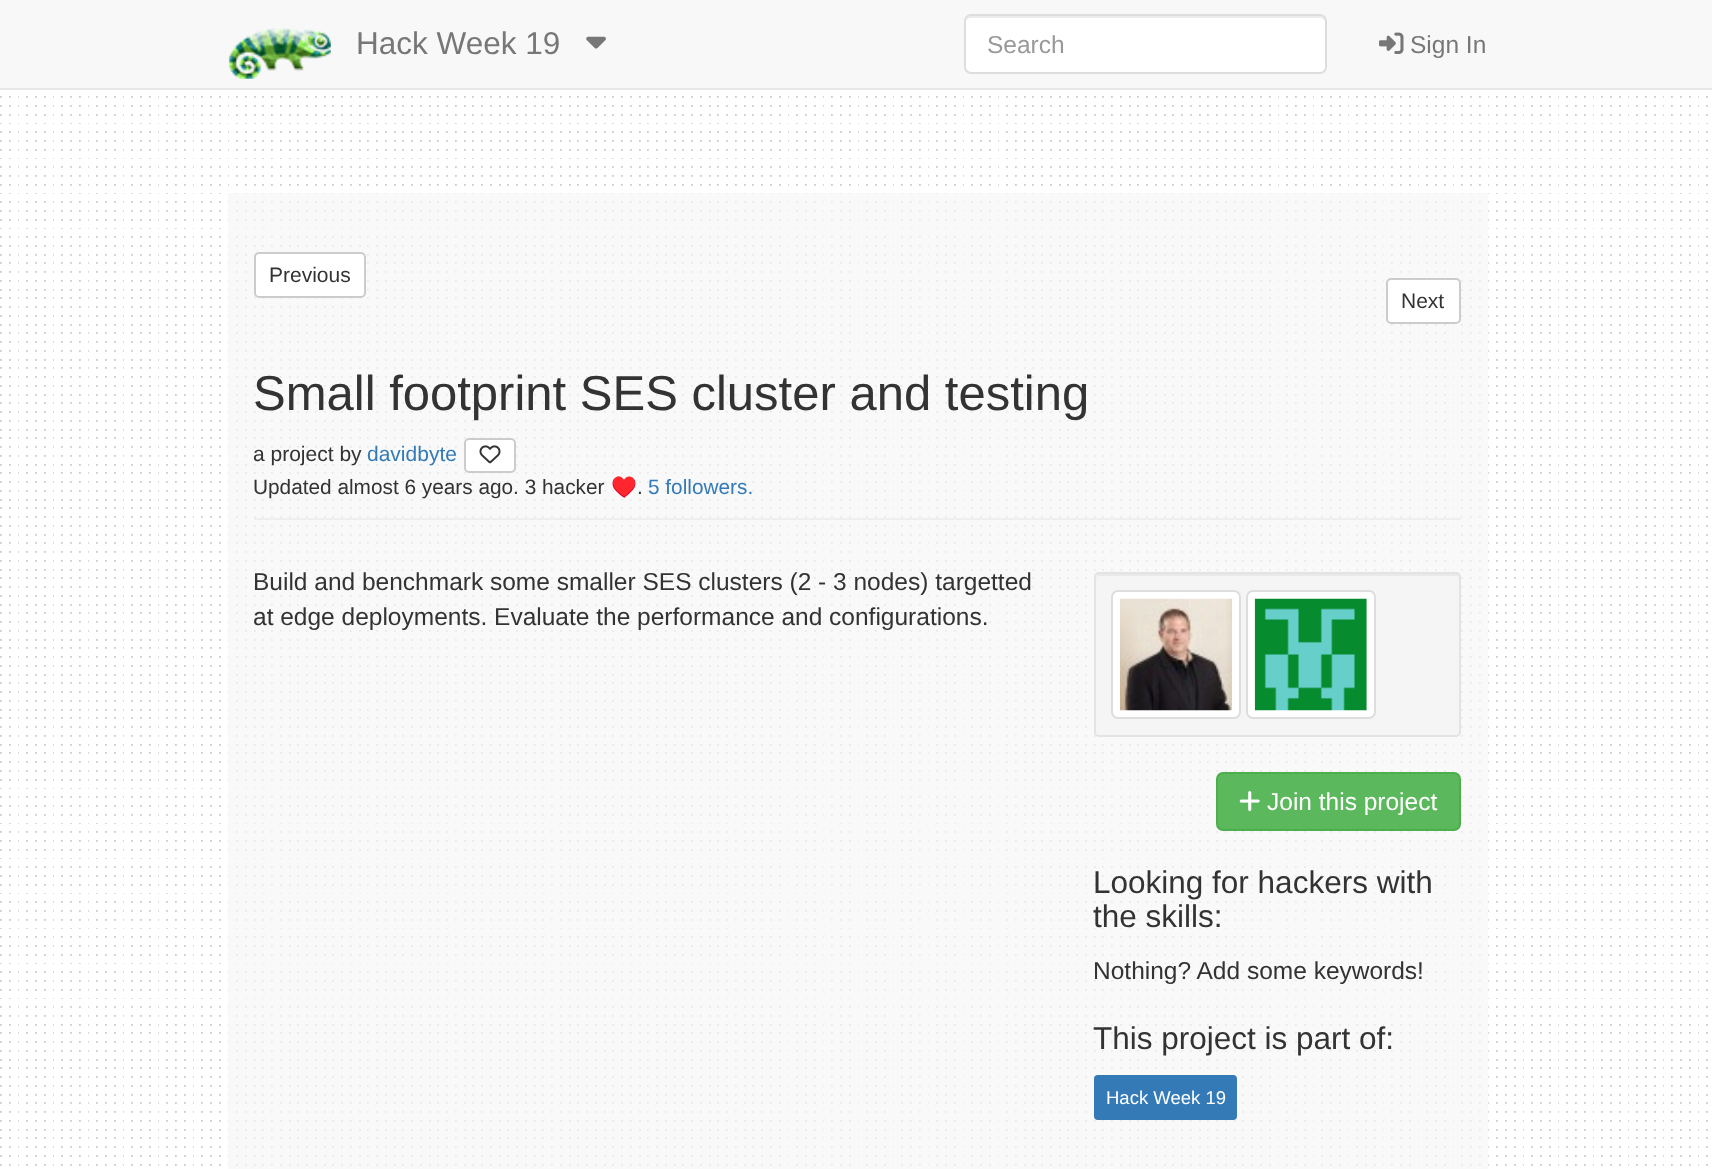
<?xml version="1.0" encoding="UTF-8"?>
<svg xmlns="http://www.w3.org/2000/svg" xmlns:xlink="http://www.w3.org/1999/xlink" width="1712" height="1169">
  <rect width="100%" height="100%" fill="#ffffff" />
  <image x="0" y="90" width="1708" height="1076" xlink:href="image1.png" />
  <rect width="1712" height="88" fill="#f8f8f8" />
  <rect y="88" width="1712" height="2" fill="#e7e7e7" />
  <image x="228" y="28" width="103" height="51" xlink:href="image2.png" />
  <image x="586" y="36" width="20" height="13" xlink:href="image3.png" />
  <rect x="964" y="14" width="363" height="60" rx="7" fill="#ffffff" />
  <path d="M 971 18 h 349 c 2 0 5 2 5 5 c 0 -3 -1 -7 -5 -7 h -349 c -4 0 -5 4 -5 7 c 0 -3 2 -5 5 -5 z" fill="#ececec" />
  <rect x="965" y="15" width="361" height="58" rx="6" fill="none" stroke="#dddddd" stroke-width="2" />
  <image x="1379" y="32" width="25" height="22" xlink:href="image4.png" />
  <rect x="228" y="193" width="1260" height="976" fill="#f6f6f6" fill-opacity="0.7" />
  <rect x="255" y="253" width="110" height="44" rx="4" fill="#ffffff" stroke="#cccccc" stroke-width="2" />
  <rect x="1387" y="279" width="73" height="44" rx="4" fill="#ffffff" stroke="#cccccc" stroke-width="2" />
  <rect x="254" y="518" width="1207" height="2" fill="#eeeeee" />
  <rect x="465" y="439" width="50" height="33" rx="4" fill="#ffffff" stroke="#cccccc" stroke-width="2" />
  <image x="479" y="445" width="22" height="19" xlink:href="image5.png" />
  <rect x="1094" y="572" width="367" height="165" rx="5" fill="#f5f5f5" />
  <path d="M 1099 576 h 357 c 2 0 4 1 4 3 l -1 -3 l -2 -2 h -357 c -3 0 -4 2 -4 5 c 0 -2 1 -3 3 -3 z" fill="#e9e9e9" />
  <rect x="1095" y="573" width="365" height="163" rx="4" fill="none" stroke="#e3e3e3" stroke-width="2" />
  <rect x="1112" y="591" width="128" height="127" rx="6" fill="#ffffff" stroke="#dddddd" stroke-width="2" />
  <image x="1120" y="598" width="112" height="113" xlink:href="image6.png" />
  <rect x="1247" y="591" width="128" height="127" rx="6" fill="#ffffff" stroke="#dddddd" stroke-width="2" />
  <image x="1254" y="598" width="113" height="113" xlink:href="image7.png" />
  <rect x="1217" y="773" width="243" height="57" rx="6" fill="#5cb85c" stroke="#4cae4c" stroke-width="2" />
  <image x="1239" y="791" width="21" height="20" xlink:href="image8.png" />
  <rect x="1094" y="1075" width="143" height="45" rx="4" fill="#337ab7" />
  <text x="356" y="54" style="font-family: Liberation Sans; font-size: 31.5px; fill: #777777">Hack Week 19</text>
  <text x="987" y="53" style="font-family: Liberation Sans; font-size: 24.5px; fill: #999999">Search</text>
  <text x="1410" y="53" style="font-family: Liberation Sans; font-size: 24.5px; fill: #777777">Sign In</text>
  <text x="269" y="282" style="font-family: Liberation Sans; font-size: 21px; fill: #333333">Previous</text>
  <text x="1401" y="308" style="font-family: Liberation Sans; font-size: 21px; fill: #333333">Next</text>
  <text x="253" y="410" style="font-family: Liberation Sans; font-size: 49px; fill: #333333">Small footprint SES cluster and testing</text>
  <text x="253" y="461" style="font-family: Liberation Sans; font-size: 21px; fill: #333333">a project by</text>
  <text x="367" y="461" style="font-family: Liberation Sans; font-size: 21px; fill: #337ab7">davidbyte</text>
  <text x="253" y="494" style="font-family: Liberation Sans; font-size: 20.8px; fill: #333333">Updated almost 6 years ago. 3 hacker</text>
  <text x="611" y="494" style="font-family: Noto Color Emoji; font-size: 20.8px; fill: #333333">♥️</text>
  <text x="637" y="494" style="font-family: Liberation Sans; font-size: 20.8px; fill: #333333">.</text>
  <text x="648" y="494" style="font-family: Liberation Sans; font-size: 20.8px; fill: #337ab7">5 followers.</text>
  <text x="253" y="590" style="font-family: Liberation Sans; font-size: 24.5px; fill: #333333">Build and benchmark some smaller SES clusters (2 - 3 nodes) targetted</text>
  <text x="253" y="625" style="font-family: Liberation Sans; font-size: 24.5px; fill: #333333">at edge deployments. Evaluate the performance and configurations.</text>
  <text x="1267" y="810" style="font-family: Liberation Sans; font-size: 24.5px; fill: #ffffff">Join this project</text>
  <text x="1093" y="893" style="font-family: Liberation Sans; font-size: 31.5px; fill: #333333">Looking for hackers with</text>
  <text x="1093" y="927" style="font-family: Liberation Sans; font-size: 31.5px; fill: #333333">the skills:</text>
  <text x="1093" y="979" style="font-family: Liberation Sans; font-size: 24.5px; fill: #333333">Nothing? Add some keywords!</text>
  <text x="1093" y="1049" style="font-family: Liberation Sans; font-size: 31.5px; fill: #333333">This project is part of:</text>
  <text x="1106" y="1104" style="font-family: Liberation Sans; font-size: 18.5px; fill: #ffffff">Hack Week 19</text>
</svg>
